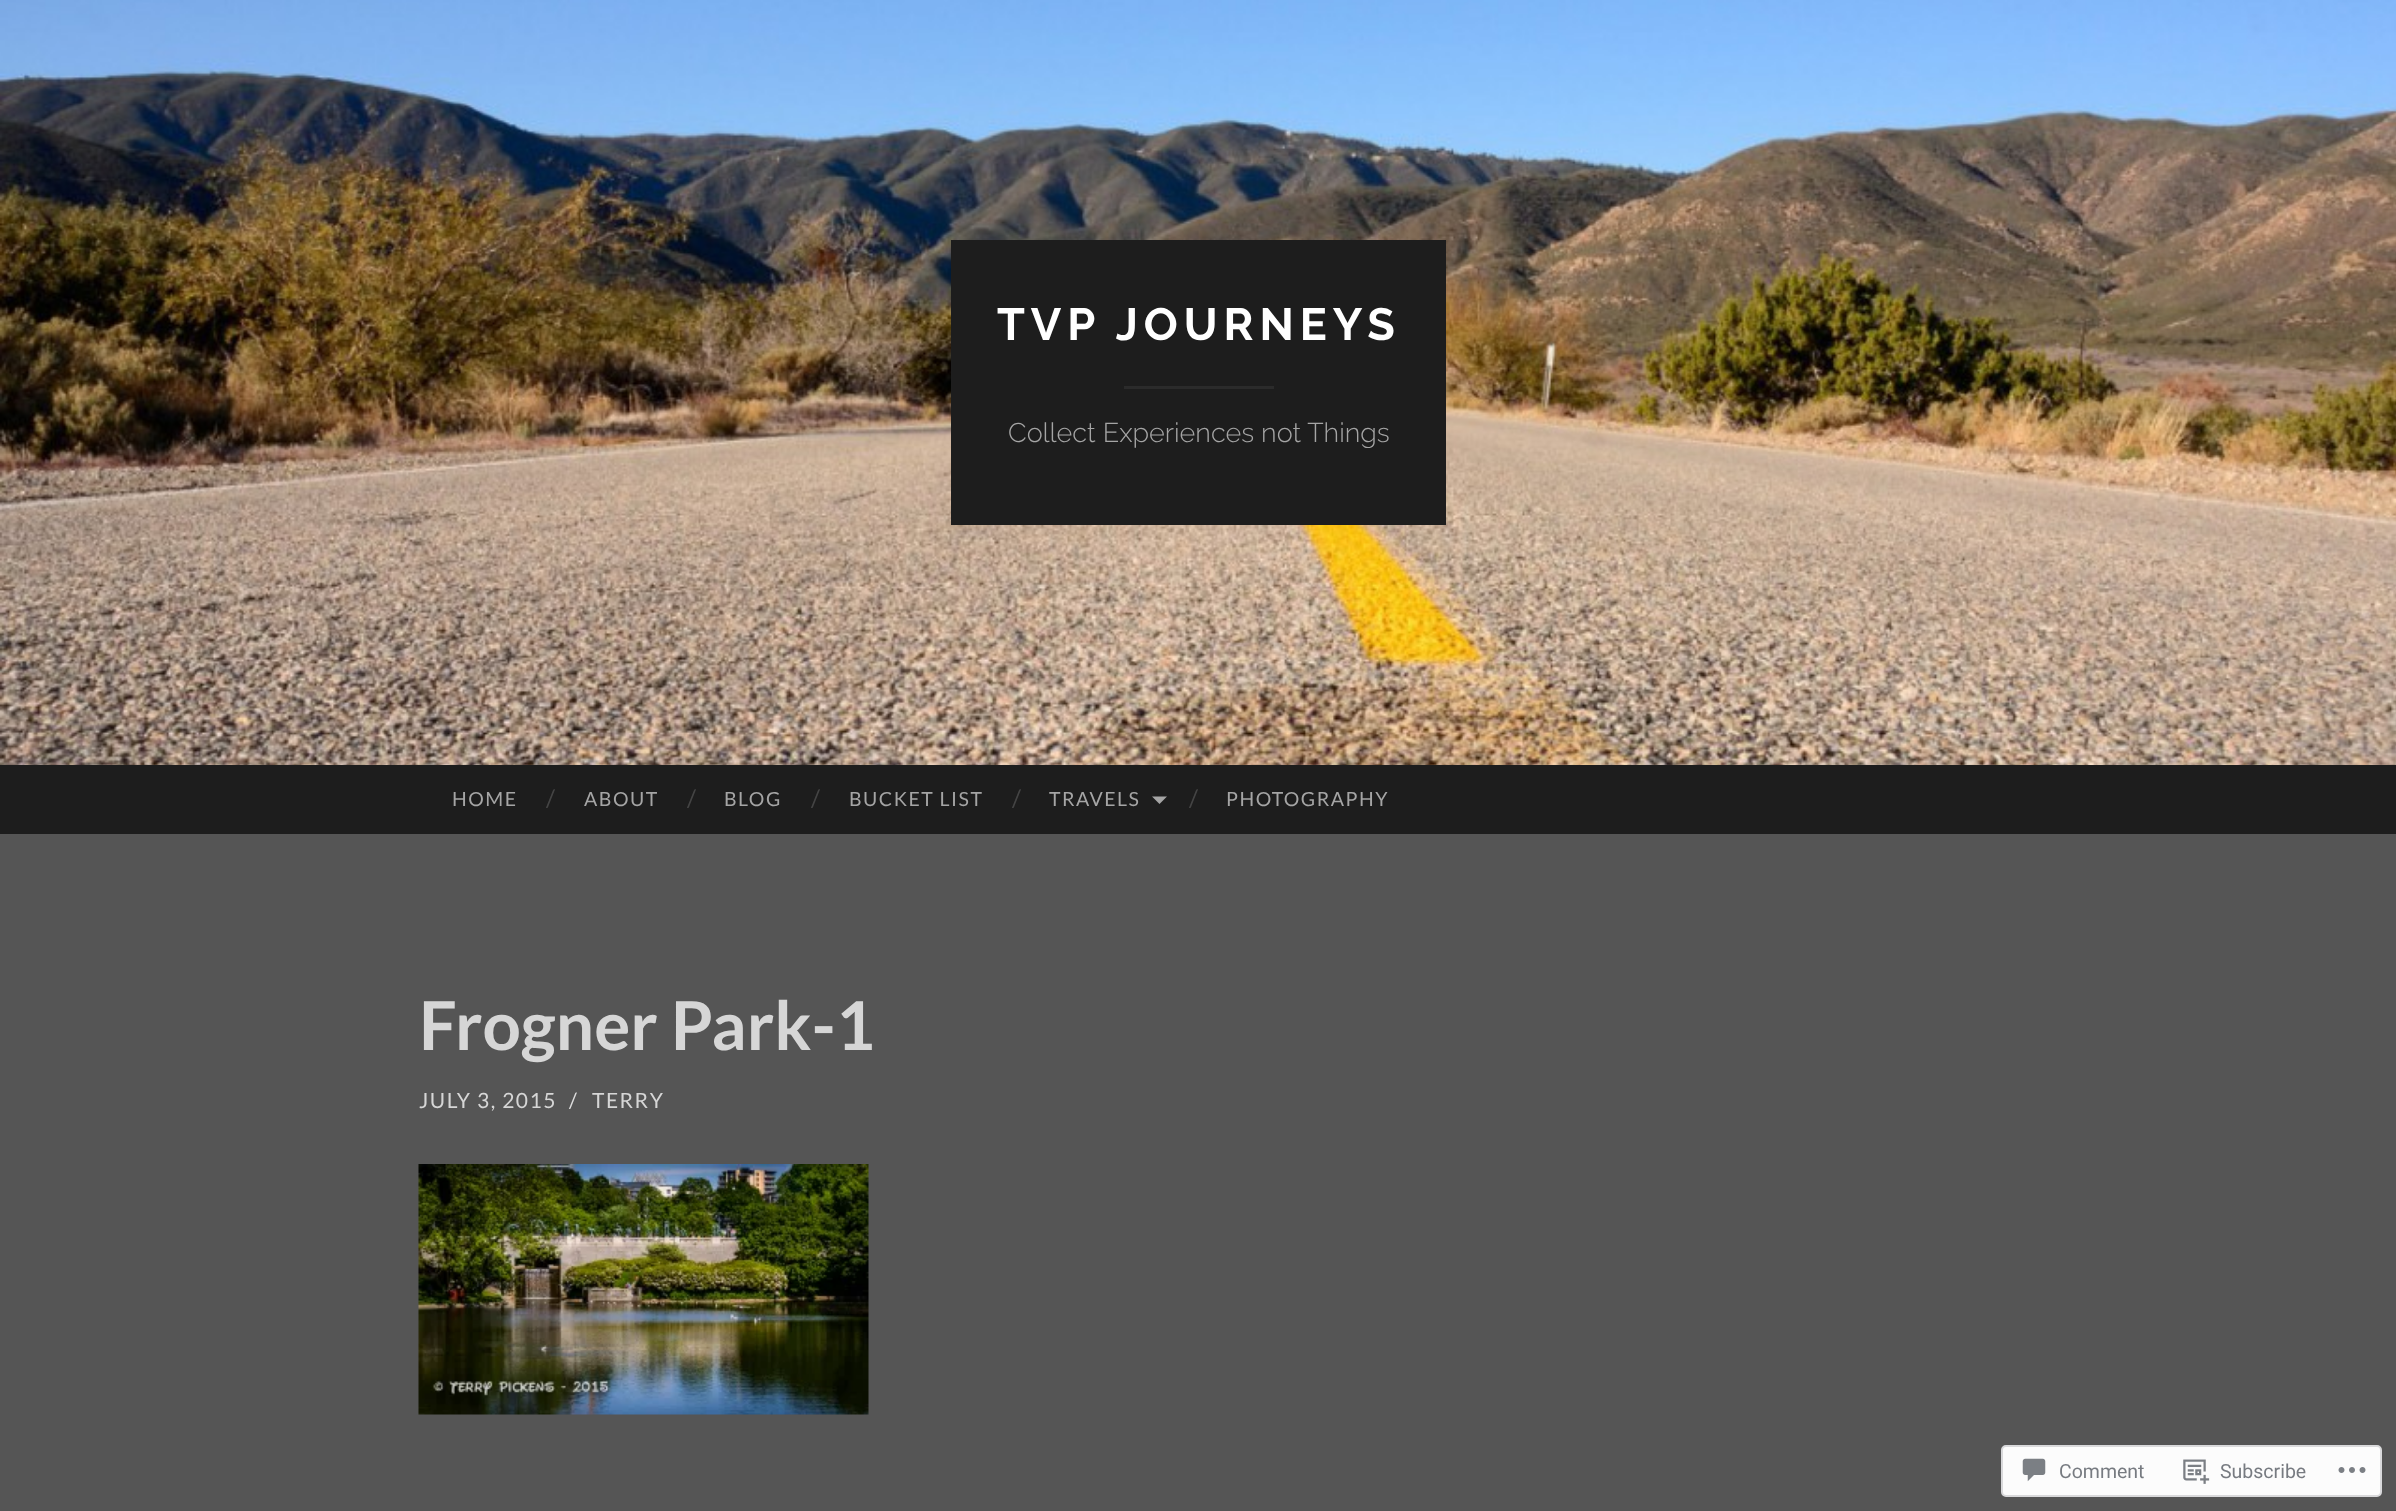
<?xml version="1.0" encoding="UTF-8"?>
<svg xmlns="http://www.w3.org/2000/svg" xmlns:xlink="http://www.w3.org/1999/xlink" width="2396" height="1511">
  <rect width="100%" height="100%" fill="#555555" />
  <image x="0" y="0" width="2396" height="765" xlink:href="image1.png" />
  <rect x="951" y="240" width="495" height="285" fill="#1d1d1d" />
  <rect x="1124" y="386" width="150" height="3" fill="#2b2b2b" />
  <rect y="765" width="2396" height="69" fill="#1d1d1d" />
  <path d="M 1152 796.5 h 15 l -7.5 7.5 z" fill="#a5a5a5" />
  <image x="418" y="1164" width="451" height="251" xlink:href="image2.png" />
  <rect x="2002" y="1446" width="379" height="50" rx="4" fill="#fcfcfc" stroke="#d9d9db" stroke-width="2" />
  <image x="2022" y="1458" width="24" height="24" xlink:href="image3.png" />
  <image x="2183" y="1459" width="27" height="25" xlink:href="image4.png" />
  <image x="2338" y="1467" width="28" height="6" xlink:href="image5.png" />
  <text x="997" y="340" style="font-family: Raleway; font-size: 45px; font-weight: bold; letter-spacing: 6px; fill: #ffffff">TVP JOURNEYS</text>
  <text x="1008" y="442" style="font-family: Raleway; font-size: 27px; font-weight: 300; fill: #a5a5a5">Collect Experiences not Things</text>
  <text x="452" y="806" style="font-family: Lato; font-size: 19.5px; letter-spacing: 1.5px; fill: #a5a5a5">HOME</text>
  <text x="546" y="807" style="font-family: Lato; font-size: 24px; fill: #444444">/</text>
  <text x="584" y="806" style="font-family: Lato; font-size: 19.5px; letter-spacing: 1.5px; fill: #a5a5a5">ABOUT</text>
  <text x="687" y="807" style="font-family: Lato; font-size: 24px; fill: #444444">/</text>
  <text x="724" y="806" style="font-family: Lato; font-size: 19.5px; letter-spacing: 1.5px; fill: #a5a5a5">BLOG</text>
  <text x="811" y="807" style="font-family: Lato; font-size: 24px; fill: #444444">/</text>
  <text x="849" y="806" style="font-family: Lato; font-size: 19.5px; letter-spacing: 1.5px; fill: #a5a5a5">BUCKET LIST</text>
  <text x="1012" y="807" style="font-family: Lato; font-size: 24px; fill: #444444">/</text>
  <text x="1049" y="806" style="font-family: Lato; font-size: 19.5px; letter-spacing: 1.5px; fill: #a5a5a5">TRAVELS</text>
  <text x="1189" y="807" style="font-family: Lato; font-size: 24px; fill: #444444">/</text>
  <text x="1226" y="806" style="font-family: Lato; font-size: 19.5px; letter-spacing: 1.5px; fill: #a5a5a5">PHOTOGRAPHY</text>
  <text x="419" y="1050" style="font-family: Lato; font-size: 67.5px; font-weight: bold; fill: #d6d6d6">Frogner Park-1</text>
  <text x="419" y="1108" style="font-family: Lato; font-size: 21px; letter-spacing: 1.5px; fill: #d6d6d6">JULY 3, 2015</text>
  <text x="569" y="1108" style="font-family: Lato; font-size: 21px; letter-spacing: 1.5px; fill: #dddddd">/</text>
  <text x="592" y="1108" style="font-family: Lato; font-size: 21px; letter-spacing: 1.5px; fill: #d6d6d6">TERRY</text>
  <text x="2059" y="1478" style="font-family: Roboto; font-size: 19.5px; fill: #777b81">Comment</text>
  <text x="2220" y="1478" style="font-family: Roboto; font-size: 19.5px; fill: #777b81">Subscribe</text>
</svg>
